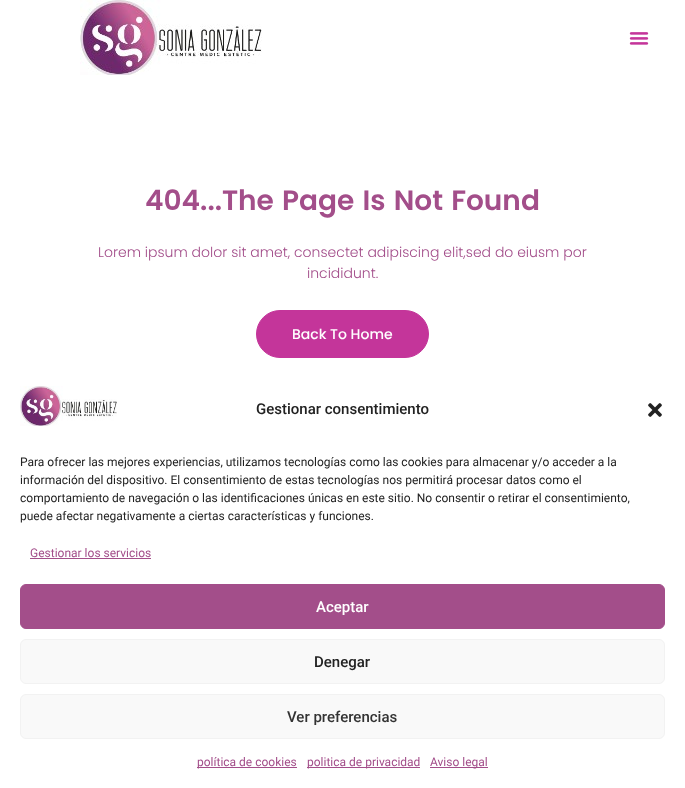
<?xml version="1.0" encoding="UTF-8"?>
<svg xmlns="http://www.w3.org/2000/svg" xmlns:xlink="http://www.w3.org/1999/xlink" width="685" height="788">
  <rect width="100%" height="100%" fill="#ffffff" />
  <image x="80" y="0" width="182" height="75" xlink:href="image1.png" />
  <image x="629" y="32" width="20" height="13" xlink:href="image2.png" />
  <rect x="256.5" y="310.5" width="172" height="47" rx="23.5" fill="#c4359a" stroke="#c4359a" />
  <image x="20" y="386" width="97" height="40" xlink:href="image3.png" />
  <image x="648" y="403" width="14" height="14" xlink:href="image4.png" />
  <rect x="30" y="558" width="121" height="1" fill="#a34e8a" />
  <rect x="20.5" y="584.5" width="644" height="44" rx="5.5" fill="#a34e8a" stroke="#a34e8a" />
  <rect x="20.5" y="639.5" width="644" height="44" rx="5.5" fill="#f9f9f9" stroke="#f2f2f2" />
  <rect x="20.5" y="694.5" width="644" height="44" rx="5.5" fill="#f9f9f9" stroke="#f2f2f2" />
  <rect x="197" y="767" width="100" height="1" fill="#a34e8a" />
  <rect x="307" y="767" width="113" height="1" fill="#a34e8a" />
  <rect x="430" y="767" width="58" height="1" fill="#a34e8a" />
  <text x="145" y="210" word-spacing="1.5" style="font-family: Poppins; font-size: 28px; font-weight: 600; fill: #a34e8a">404...The Page Is Not Found</text>
  <text x="98" y="257" style="font-family: Poppins; font-size: 14px; font-weight: 300; fill: #a34e8a">Lorem ipsum dolor sit amet, consectet adipiscing elit,sed do eiusm por</text>
  <text x="307" y="278" style="font-family: Poppins; font-size: 14px; font-weight: 300; fill: #a34e8a">incididunt.</text>
  <text x="292" y="339" style="font-family: Poppins; font-size: 14px; font-weight: 500; fill: #ffffff">Back To Home</text>
  <text x="256" y="414" style="font-family: Roboto; font-size: 15px; font-weight: 500; fill: #222222">Gestionar consentimiento</text>
  <text x="20" y="466" style="font-family: Roboto; font-size: 12px; fill: #222222">Para ofrecer las mejores experiencias, utilizamos tecnologías como las cookies para almacenar y/o acceder a la</text>
  <text x="20" y="484" style="font-family: Roboto; font-size: 12px; fill: #222222">información del dispositivo. El consentimiento de estas tecnologías nos permitirá procesar datos como el</text>
  <text x="20" y="502" style="font-family: Roboto; font-size: 12px; fill: #222222">comportamiento de navegación o las identificaciones únicas en este sitio. No consentir o retirar el consentimiento,</text>
  <text x="20" y="520" style="font-family: Roboto; font-size: 12px; fill: #222222">puede afectar negativamente a ciertas características y funciones.</text>
  <text x="30" y="557" style="font-family: Roboto; font-size: 12px; fill: #a34e8a">Gestionar los servicios</text>
  <text x="316" y="612" style="font-family: Roboto; font-size: 15px; font-weight: 500; fill: #ffffff">Aceptar</text>
  <text x="314" y="667" style="font-family: Roboto; font-size: 15px; font-weight: 500; fill: #222222">Denegar</text>
  <text x="287" y="722" style="font-family: Roboto; font-size: 15px; font-weight: 500; fill: #333333">Ver preferencias</text>
  <text x="197" y="766" style="font-family: Roboto; font-size: 12px; fill: #a34e8a">política de cookies</text>
  <text x="307" y="766" style="font-family: Roboto; font-size: 12px; fill: #a34e8a">politica de privacidad</text>
  <text x="430" y="766" style="font-family: Roboto; font-size: 12px; fill: #a34e8a">Aviso legal</text>
</svg>
